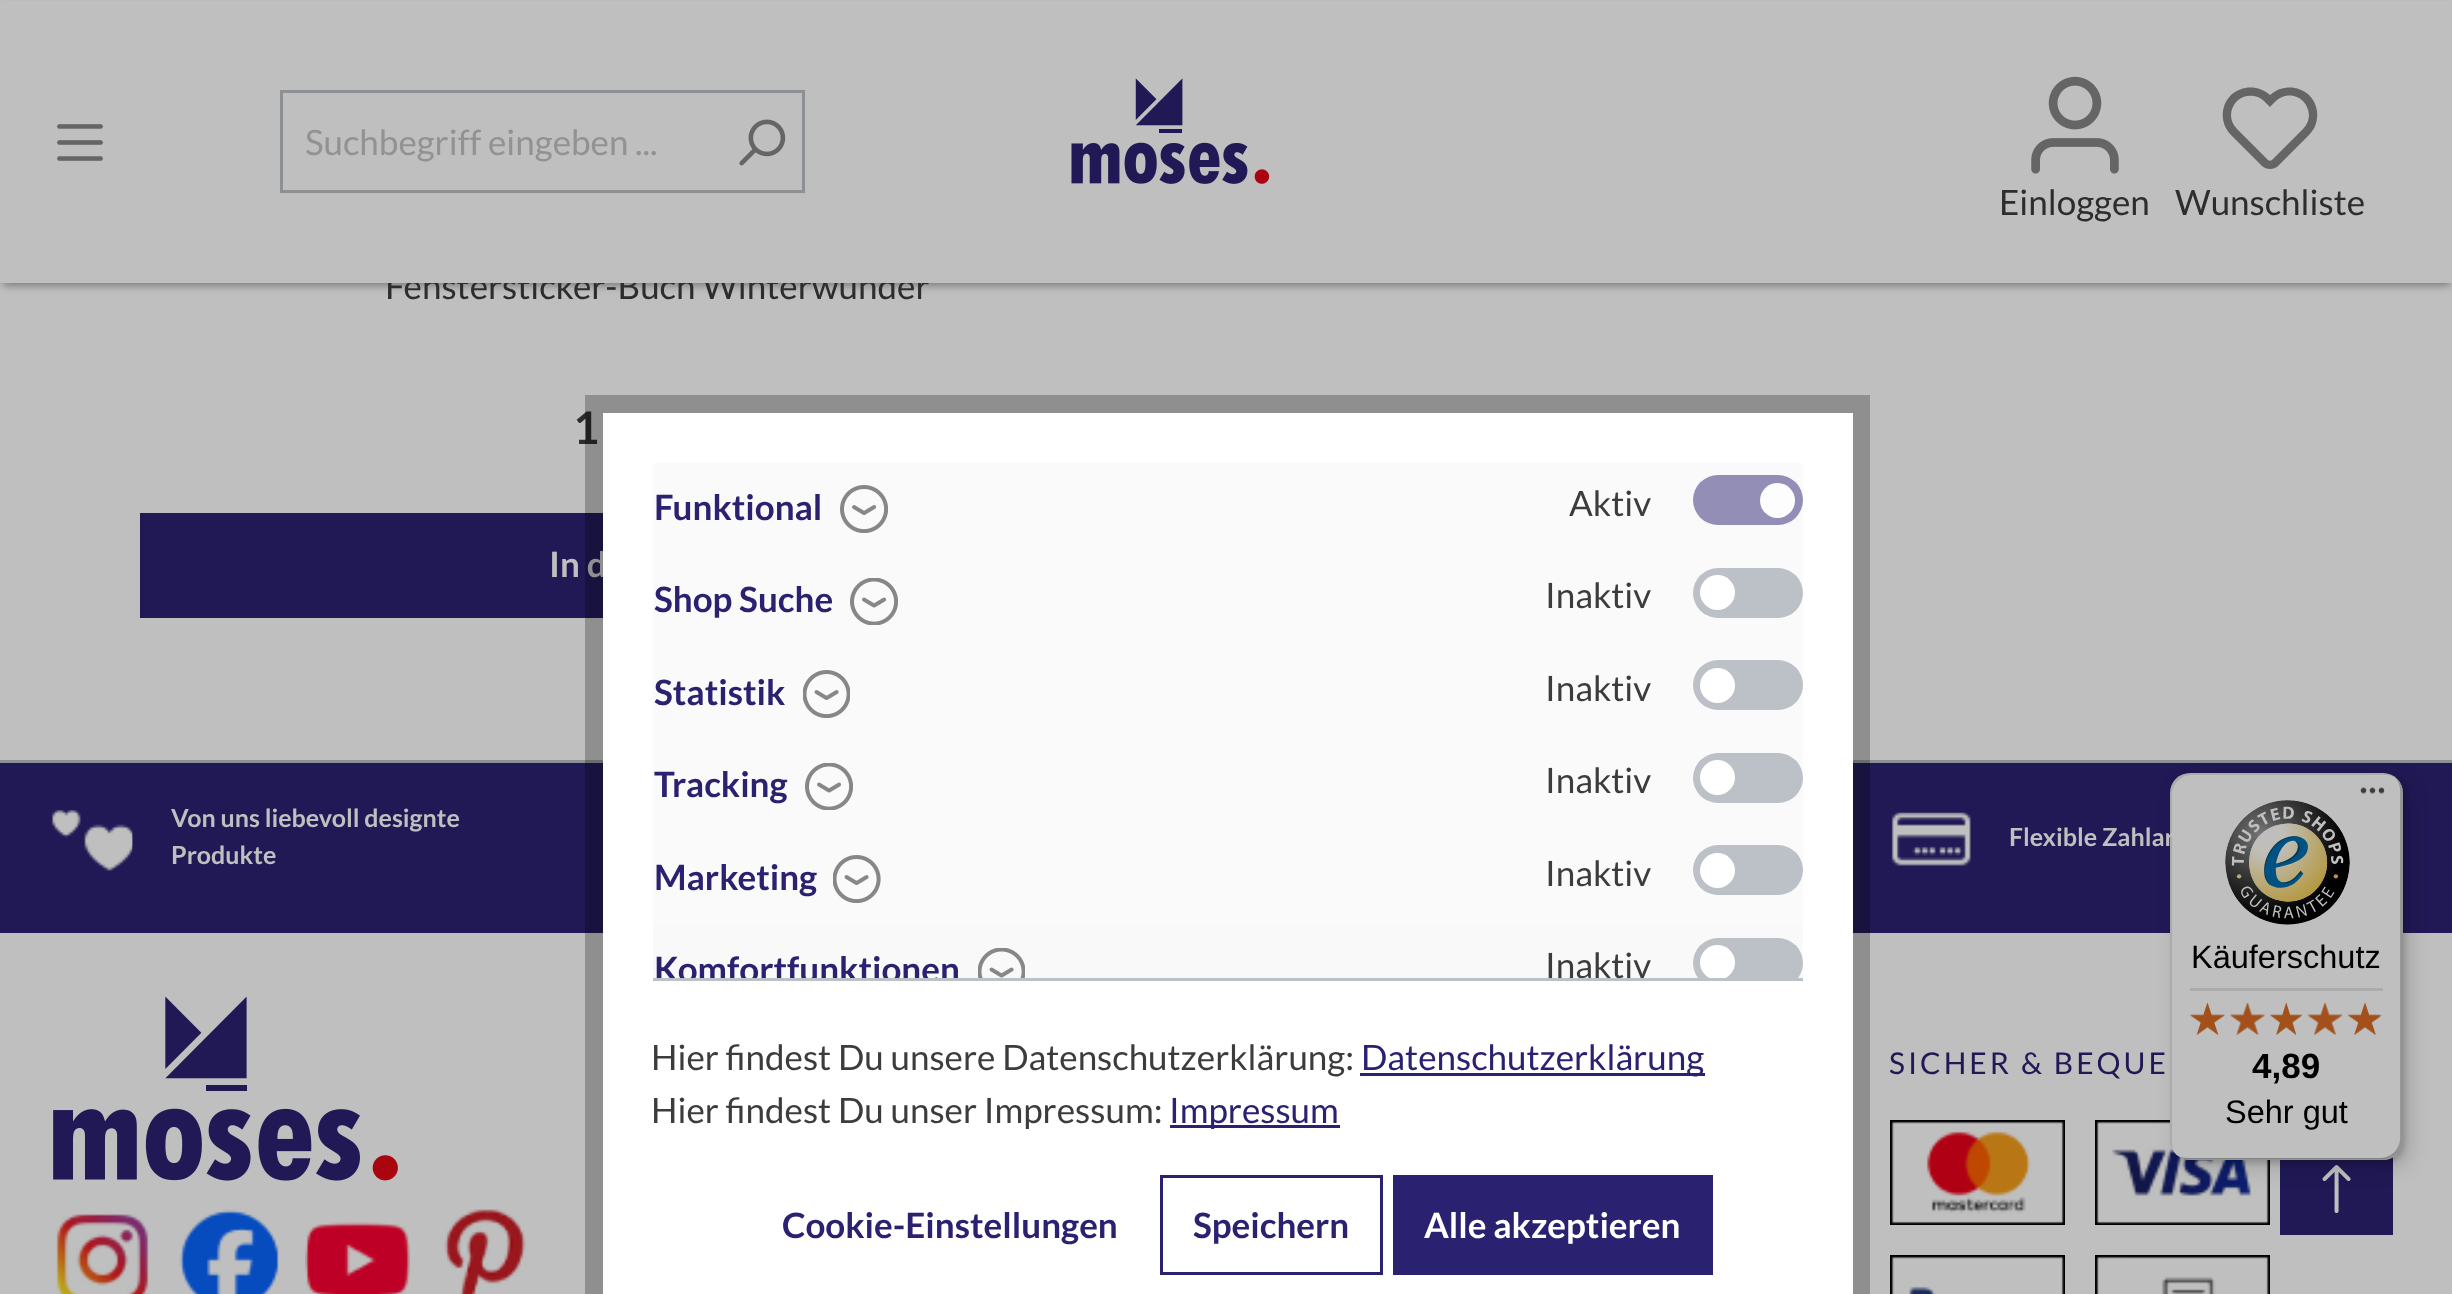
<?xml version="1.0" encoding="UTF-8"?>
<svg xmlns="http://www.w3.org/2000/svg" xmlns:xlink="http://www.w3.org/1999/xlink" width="2452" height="1294">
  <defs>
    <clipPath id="clip1"><rect x="653" y="463" width="1150" height="515" /></clipPath>
  </defs>
  <rect width="100%" height="100%" fill="#bfbfbf" />
  <rect x="3" y="8" width="2447" height="277" fill="#000000" fill-opacity="0.4" filter="blur(4px)" />
  <rect x="140" y="513" width="463" height="105" fill="#201955" />
  <rect y="760" width="2452" height="3" fill="#8d9195" />
  <rect y="763" width="2452" height="170" fill="#201955" />
  <image x="51" y="810" width="82" height="61" xlink:href="image10.png" />
  <image x="1891" y="812" width="80" height="54" xlink:href="image11.png" />
  <image x="53" y="996" width="345" height="185" xlink:href="image12.png" />
  <image x="56" y="1214" width="93" height="80" xlink:href="image13.png" />
  <image x="179" y="1209" width="100" height="85" xlink:href="image14.png" />
  <image x="305" y="1222" width="105" height="72" xlink:href="image15.png" />
  <image x="444" y="1209" width="82" height="85" xlink:href="image16.png" />
  <image x="1890" y="1120" width="175" height="105" xlink:href="image17.png" />
  <image x="2095" y="1120" width="175" height="105" xlink:href="image18.png" />
  <image x="1890" y="1255" width="175" height="39" xlink:href="image19.png" />
  <image x="2095" y="1255" width="175" height="39" xlink:href="image20.png" />
  <rect x="2280" y="1157" width="113" height="78" fill="#201955" />
  <image x="2322" y="1165" width="29" height="48" xlink:href="image33.png" />
  <rect x="2178" y="780" width="232" height="388" rx="20" fill="#000000" fill-opacity="0.15" filter="blur(10px)" />
  <rect x="2173" y="775" width="232" height="388" rx="20" fill="#000000" fill-opacity="0.15" filter="blur(2.5px)" />
  <rect x="2170" y="773" width="233" height="387" rx="20" fill="#bfbfbf" />
  <path d="M 2192 775 h 193 c 5 0 10 2 13 5 c -3 -4 -9 -7 -15 -7 h -193 c -11 0 -20 9 -20 20 v 347 c 0 5 2 10 6 14 c -3 -3 -4 -7 -4 -12 v -347 c 0 -11 9 -20 20 -20 z" fill="#000000" fill-opacity="0.1" />
  <path d="M 2176 1154 c 4 4 9 6 14 6 h 193 c 11 0 20 -9 20 -20 v -347 c 0 -6 -3 -12 -8 -16 c 3 4 5 8 5 13 v 348 c 0 11 -9 20 -20 20 h -192 c -5 0 -9 -1 -12 -4 z" fill="#000000" fill-opacity="0.2" />
  <path d="M 2176 1154 c 4 4 9 6 14 6 h 193 c 11 0 20 -9 20 -20 v -347 c 0 -6 -3 -12 -7 -15 c 3 3 5 8 5 13 v 347 c 0 12 -9 20 -20 20 h -193 c -5 0 -9 -1 -12 -4 z" fill="#262626" fill-opacity="0.2" />
  <path d="M 2175 1153 c 4 4 9 7 15 7 h 193 c 11 0 20 -9 20 -20 v -347 c 0 -6 -3 -12 -7 -15 c 3 3 5 8 5 13 v 348 c 0 11 -9 20 -20 20 h -192 c -5 0 -10 -2 -14 -6 z" fill="#bfbfbf" fill-opacity="0.3" />
  <image x="2360" y="787" width="25" height="7" xlink:href="image21.png" />
  <image x="2225" y="800" width="125" height="125" xlink:href="image22.png" />
  <rect x="2190" y="988" width="193" height="3" fill="#acacac" />
  <image x="2190" y="1003" width="35" height="32" xlink:href="image28.png" />
  <image x="2190" y="1002" width="35" height="33" xlink:href="image23.png" />
  <image x="2230" y="1003" width="35" height="32" xlink:href="image29.png" />
  <image x="2230" y="1002" width="35" height="33" xlink:href="image24.png" />
  <image x="2270" y="1003" width="32" height="32" xlink:href="image30.png" />
  <image x="2270" y="1002" width="32" height="33" xlink:href="image25.png" />
  <image x="2308" y="1003" width="34" height="32" xlink:href="image31.png" />
  <image x="2307" y="1002" width="36" height="33" xlink:href="image26.png" />
  <image x="2348" y="1003" width="34" height="32" xlink:href="image32.png" />
  <image x="2348" y="1002" width="32" height="33" xlink:href="image27.png" />
  <text x="385" y="299" style="font-family: Lato; font-size: 35px; fill: #2d2d2d">Fenstersticker-Buch Winterwunder</text>
  <rect y="1" width="2452" height="282" fill="#bfbfbf" />
  <path d="M 2303 129 c 15 -15 -1 -40 -21 -32 c -5 2 -8 6 -12 10 l -6 -6 c -7 -7 -20 -7 -27 0 c -8 8 -8 20 0 28 l 31 31 c 1 1 3 1 4 0 z m 6 6 l -31 31 c -4 4 -12 4 -16 0 l -31 -31 c -11 -11 -11 -29 0 -40 c 11 -10 28 -10 39 0 c 11 -10 28 -10 39 0 c 11 11 11 29 0 40 z" fill="#656565" fill-rule="evenodd" />
  <text x="2175" y="215" style="font-family: Lato; font-size: 35px; fill: #2d2d2d">Wunschliste</text>
  <image x="2031" y="76" width="88" height="98" xlink:href="image4.png" />
  <text x="1999" y="215" style="font-family: Lato; font-size: 35px; fill: #2d2d2d">Einloggen</text>
  <rect x="716.5" y="91.5" width="87" height="100" fill="none" stroke="#8d9195" stroke-width="3" />
  <image x="739" y="119" width="47" height="47" xlink:href="image2.png" />
  <text x="305" y="155" style="font-family: Lato; font-size: 35px; fill: #929292">Suchbegriff eingeben ...</text>
  <rect x="280" y="190" width="438" height="3" fill="#8d9195" />
  <rect x="280" y="90" width="438" height="3" fill="#8d9195" />
  <rect x="280" y="90" width="3" height="103" fill="#8d9195" />
  <rect x="715" y="93" width="3" height="97" fill="#bfbfbf" />
  <image x="57" y="124" width="46" height="37" xlink:href="image1.png" />
  <image x="1071" y="78" width="199" height="106" xlink:href="image3.png" />
  <text x="573" y="444" style="font-family: Lato; font-size: 45px; font-weight: bold; fill: #2d2d2d">1</text>
  <text x="549" y="577" style="font-family: Lato; font-size: 35px; font-weight: bold; fill: #bfbfbf">In d</text>
  <rect x="594" y="404" width="1267" height="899" fill="none" stroke="#000000" stroke-opacity="0.25" stroke-width="18" />
  <rect x="603" y="413" width="1250" height="881" fill="#ffffff" />
  <rect x="653" y="978" width="1150" height="3" fill="#bcc1c7" />
  <rect x="653" y="463" width="1150" height="462" fill="#fafafa" />
  <text x="654" y="520" style="font-family: Lato; font-size: 35px; font-weight: bold; fill: #2b2171">Funktional</text>
  <image x="840" y="485" width="48" height="48" xlink:href="image5.png" />
  <text x="1569" y="516" style="font-family: Lato; font-size: 35px; fill: #3c3c3c">Aktiv</text>
  <rect x="1693" y="475" width="110" height="50" rx="25" fill="#938eb6" />
  <circle cx="1777.5" cy="500.5" r="17.5" fill="#fdfdfd" />
  <text x="654" y="612" style="font-family: Lato; font-size: 35px; font-weight: bold; fill: #2b2171">Shop Suche</text>
  <image x="850" y="578" width="48" height="47" xlink:href="image6.png" />
  <text x="1545" y="608" style="font-family: Lato; font-size: 35px; fill: #3c3c3c">Inaktiv</text>
  <rect x="1693" y="568" width="110" height="50" rx="25" fill="#bcc1c7" />
  <circle cx="1717.5" cy="592.5" r="17.5" fill="#ffffff" />
  <text x="654" y="705" style="font-family: Lato; font-size: 35px; font-weight: bold; fill: #2b2171">Statistik</text>
  <image x="803" y="670" width="47" height="48" xlink:href="image7.png" />
  <text x="1545" y="701" style="font-family: Lato; font-size: 35px; fill: #3c3c3c">Inaktiv</text>
  <rect x="1693" y="660" width="110" height="50" rx="25" fill="#bcc1c7" />
  <circle cx="1717.5" cy="685.5" r="17.5" fill="#ffffff" />
  <text x="654" y="797" style="font-family: Lato; font-size: 35px; font-weight: bold; fill: #2b2171">Tracking</text>
  <image x="805" y="763" width="48" height="47" xlink:href="image6.png" />
  <text x="1545" y="793" style="font-family: Lato; font-size: 35px; fill: #3c3c3c">Inaktiv</text>
  <rect x="1693" y="753" width="110" height="50" rx="25" fill="#bcc1c7" />
  <circle cx="1717.5" cy="777.5" r="17.5" fill="#ffffff" />
  <text x="654" y="890" style="font-family: Lato; font-size: 35px; font-weight: bold; fill: #2b2171">Marketing</text>
  <image x="833" y="855" width="48" height="48" xlink:href="image8.png" />
  <text x="1545" y="886" style="font-family: Lato; font-size: 35px; fill: #3c3c3c">Inaktiv</text>
  <rect x="1693" y="845" width="110" height="50" rx="25" fill="#bcc1c7" />
  <circle cx="1717.5" cy="870.5" r="17.5" fill="#ffffff" />
  <rect x="653" y="925" width="1150" height="53" fill="#f9f9f9" />
  <g clip-path="url(#clip1)">
    <text x="654" y="982" style="font-family: Lato; font-size: 35px; font-weight: bold; fill: #2b2171">Komfortfunktionen</text>
  </g>
  <image x="978" y="948" width="47" height="30" xlink:href="image9.png" />
  <g clip-path="url(#clip1)">
    <text x="1545" y="978" style="font-family: Lato; font-size: 35px; fill: #3c3c3c">Inaktiv</text>
    <rect x="1693" y="938" width="110" height="50" rx="25" fill="#bcc1c7" />
    <circle cx="1717.5" cy="962.5" r="17.5" fill="#ffffff" />
  </g>
  <text x="651" y="1070" style="font-family: Lato; font-size: 35px; fill: #3c3c3c">Hier findest Du unsere Datenschutzerklärung:</text>
  <rect x="1360" y="1073" width="345" height="3" fill="#2b2171" />
  <text x="1361" y="1070" style="font-family: Lato; font-size: 35px; fill: #2b2171">Datenschutzerklärung</text>
  <text x="651" y="1123" style="font-family: Lato; font-size: 35px; fill: #3c3c3c">Hier findest Du unser Impressum:</text>
  <rect x="1170" y="1125" width="170" height="3" fill="#2b2171" />
  <text x="1169" y="1123" style="font-family: Lato; font-size: 35px; fill: #2b2171">Impressum</text>
  <text x="782" y="1238" style="font-family: Lato; font-size: 35px; font-weight: bold; fill: #2b2171">Cookie-Einstellungen</text>
  <rect x="1161.5" y="1176.5" width="220" height="97" fill="none" stroke="#2b2171" stroke-width="3" />
  <text x="1193" y="1238" style="font-family: Lato; font-size: 35px; font-weight: bold; fill: #2b2171">Speichern</text>
  <rect x="1393" y="1175" width="320" height="100" fill="#2b2171" />
  <text x="1424" y="1238" style="font-family: Lato; font-size: 35px; font-weight: bold; fill: #ffffff">Alle akzeptieren</text>
  <text x="171" y="827" style="font-family: Lato; font-size: 25px; font-weight: bold; fill: #bfbfbf">Von uns liebevoll designte</text>
  <text x="171" y="864" style="font-family: Lato; font-size: 25px; font-weight: bold; fill: #bfbfbf">Produkte</text>
  <text x="2009" y="846" style="font-family: Lato; font-size: 25px; font-weight: bold; fill: #bfbfbf">Flexible Zahlar</text>
  <text x="1889" y="1074" style="font-family: Lato; font-size: 30px; letter-spacing: 3px; fill: #201955">SICHER &amp; BEQUE</text>
  <text x="2191" y="968" style="font-family: Liberation Sans; font-size: 32.5px; fill: #000000">Käuferschutz</text>
  <text x="2252" y="1078" style="font-family: Liberation Sans; font-size: 35px; font-weight: bold; fill: #000000">4,89</text>
  <text x="2225" y="1123" style="font-family: Liberation Sans; font-size: 32.5px; fill: #000000">Sehr gut</text>
</svg>
